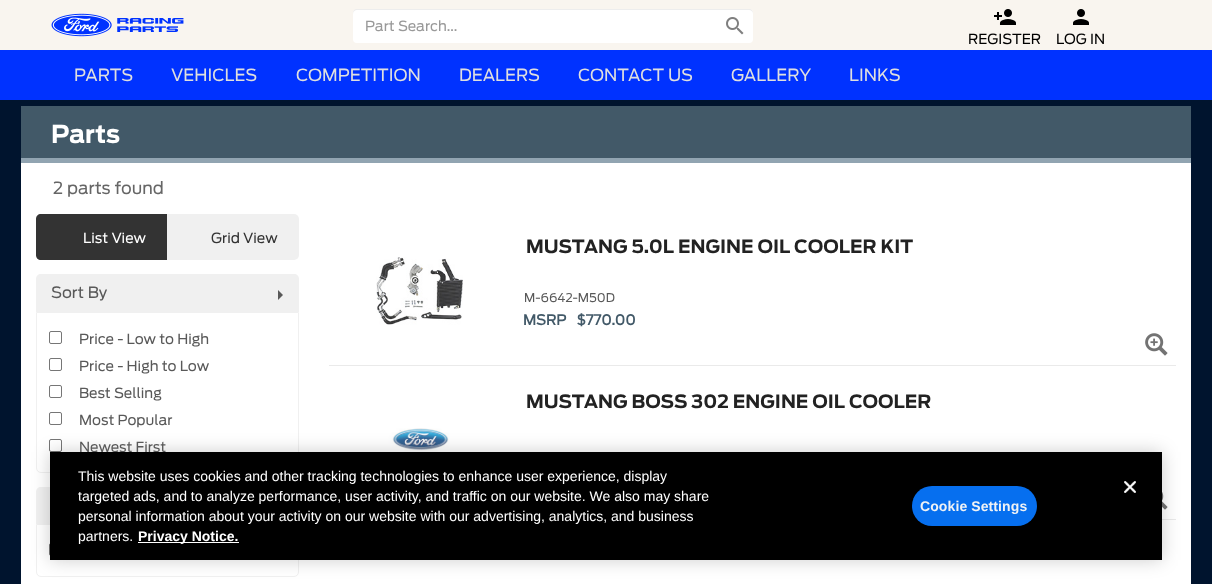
<?xml version="1.0" encoding="UTF-8"?>
<svg xmlns="http://www.w3.org/2000/svg" xmlns:xlink="http://www.w3.org/1999/xlink" width="1212" height="584">
  <rect width="100%" height="100%" fill="#00142e" />
  <rect width="1212" height="50" fill="#f9f5ef" />
  <image x="51" y="13" width="133" height="24" xlink:href="image1.png" />
  <rect x="353" y="9" width="400" height="34" rx="4" fill="#ffffff" />
  <path d="M 357 10 h 392 c 2 0 4 2 4 4 c 0 -3 -1 -5 -4 -5 h -392 c -3 0 -4 2 -4 5 c 0 -2 2 -4 4 -4 z" fill="#000000" fill-opacity="0.07" />
  <image x="726" y="17" width="18" height="18" xlink:href="image2.png" />
  <image x="994" y="9" width="22" height="16" xlink:href="image3.png" />
  <image x="1073" y="9" width="16" height="16" xlink:href="image4.png" />
  <rect y="50" width="1212" height="50" fill="#0032ff" />
  <rect x="21" y="163" width="1170" height="421" fill="#ffffff" />
  <rect x="21" y="106" width="1170" height="52" fill="#425968" />
  <rect x="21" y="158" width="1170" height="5" fill="#91a4b1" />
  <rect x="36" y="214" width="263" height="46" rx="5" fill="#f0f0f0" />
  <path d="M 41 214 h 126 v 46 h -126 c -3 0 -5 -2 -5 -5 v -36 c 0 -3 2 -5 5 -5 z" fill="#333333" />
  <path d="M 41 274 h 253 c 3 0 5 2 5 5 v 33 h -263 v -33 c 0 -3 2 -5 5 -5 z" fill="#f0f0f0" />
  <path d="M 278 300 v -10 l 5 5 z" fill="#595959" />
  <path d="M 36.5 312.5 h 262 v 155.5 c 0 2.5 -2 4.5 -4.5 4.5 h -253 c -2.5 0 -4.5 -2 -4.5 -4.5 z" fill="none" stroke="#f0f0f0" />
  <rect x="49.5" y="331.5" width="12" height="12" rx="1.5" fill="none" stroke="#767676" />
  <rect x="49.5" y="358.5" width="12" height="12" rx="1.5" fill="none" stroke="#767676" />
  <rect x="49.5" y="385.5" width="12" height="12" rx="1.5" fill="none" stroke="#767676" />
  <rect x="49.5" y="412.5" width="12" height="12" rx="1.5" fill="none" stroke="#767676" />
  <rect x="49.5" y="439.5" width="12" height="12" rx="1.5" fill="none" stroke="#767676" />
  <path d="M 41 487 h 253 c 3 0 5 2 5 5 v 32 h -263 v -32 c 0 -3 2 -5 5 -5 z" fill="#f0f0f0" />
  <path d="M 36.5 524.5 h 262 v 47.5 c 0 2.5 -2 4.5 -4.5 4.5 h -253 c -2.5 0 -4.5 -2 -4.5 -4.5 z" fill="none" stroke="#f0f0f0" />
  <rect x="49.5" y="543.5" width="12" height="12" rx="1.5" fill="none" stroke="#767676" />
  <rect x="329" y="365" width="847" height="1" fill="#eaeaea" />
  <image x="376" y="257" width="87" height="68" xlink:href="image5.png" />
  <image x="1145" y="333" width="23" height="23" xlink:href="image6.png" />
  <rect x="1162" y="519" width="14" height="1" fill="#eaeaea" />
  <image x="367" y="428" width="107" height="24" xlink:href="image7.png" />
  <image x="1162" y="492" width="6" height="18" xlink:href="image8.png" />
  <rect x="50" y="452" width="1112" height="108" fill="#000000" fill-opacity="0.2" filter="blur(9px)" />
  <text x="365" y="31" style="font-family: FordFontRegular; font-size: 14px; fill: #999999">Part Search...</text>
  <text x="968" y="44" style="font-family: FordFontRegular; font-size: 14px; fill: #000000">REGISTER</text>
  <text x="1056" y="44" style="font-family: FordFontRegular; font-size: 14px; fill: #000000">LOG IN</text>
  <text x="74" y="81" style="font-family: FordFontRegular; font-size: 16.75px; fill: #dfdfdf">PARTS</text>
  <text x="171" y="81" style="font-family: FordFontRegular; font-size: 16.75px; fill: #dfdfdf">VEHICLES</text>
  <text x="296" y="81" style="font-family: FordFontRegular; font-size: 16.75px; fill: #dfdfdf">COMPETITION</text>
  <text x="459" y="81" style="font-family: FordFontRegular; font-size: 16.75px; fill: #dfdfdf">DEALERS</text>
  <text x="578" y="81" style="font-family: FordFontRegular; font-size: 16.75px; fill: #dfdfdf">CONTACT US</text>
  <text x="731" y="81" style="font-family: FordFontRegular; font-size: 16.75px; fill: #dfdfdf">GALLERY</text>
  <text x="849" y="81" style="font-family: FordFontRegular; font-size: 16.75px; fill: #dfdfdf">LINKS</text>
  <text x="51" y="143" style="font-family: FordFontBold; font-size: 24.5px; font-weight: bold; fill: #ffffff">Parts</text>
  <text x="53" y="194" style="font-family: FordFontRegular; font-size: 16.75px; fill: #666666">2 parts found</text>
  <text x="83" y="243" style="font-family: FordFontRegular; font-size: 14px; fill: #ffffff">List View</text>
  <text x="211" y="243" style="font-family: FordFontRegular; font-size: 14px; fill: #333333">Grid View</text>
  <text x="51" y="298" style="font-family: FordFontRegular; font-size: 15.5px; fill: #595959">Sort By</text>
  <text x="79" y="344" style="font-family: FordFontRegular; font-size: 14px; fill: #595959">Price - Low to High</text>
  <text x="79" y="371" style="font-family: FordFontRegular; font-size: 14px; fill: #595959">Price - High to Low</text>
  <text x="79" y="398" style="font-family: FordFontRegular; font-size: 14px; fill: #595959">Best Selling</text>
  <text x="79" y="425" style="font-family: FordFontRegular; font-size: 14px; fill: #595959">Most Popular</text>
  <text x="79" y="452" style="font-family: FordFontRegular; font-size: 14px; fill: #595959">Newest First</text>
  <text x="526" y="253" style="font-family: FordFontBold; font-size: 18.2px; font-weight: bold; fill: #222222">MUSTANG 5.0L ENGINE OIL COOLER KIT</text>
  <text x="524" y="302" style="font-family: FordFontRegular; font-size: 12px; fill: #595959">M-6642-M50D</text>
  <text x="523" y="325" word-spacing="7" style="font-family: FordFontRegular; font-size: 14px; font-weight: bold; fill: #425968">MSRP $770.00</text>
  <text x="526" y="408" style="font-family: FordFontBold; font-size: 18.2px; font-weight: bold; fill: #222222">MUSTANG BOSS 302 ENGINE OIL COOLER</text>
  <rect x="50" y="452" width="1112" height="108" fill="#000000" />
  <text x="78" y="481" style="font-family: Liberation Sans; font-size: 14px; fill: #ffffff">This website uses cookies and other tracking technologies to enhance user experience, display</text>
  <text x="78" y="501" style="font-family: Liberation Sans; font-size: 14px; fill: #ffffff">targeted ads, and to analyze performance, user activity, and traffic on our website. We also may share</text>
  <text x="78" y="521" style="font-family: Liberation Sans; font-size: 14px; fill: #ffffff">personal information about your activity on our website with our advertising, analytics, and business</text>
  <text x="78" y="541" style="font-family: Liberation Sans; font-size: 14px; fill: #ffffff">partners.</text>
  <rect x="138" y="542" width="101" height="1" fill="#ffffff" />
  <text x="138" y="541" style="font-family: Liberation Sans; font-size: 14px; font-weight: bold; fill: #ffffff">Privacy Notice.</text>
  <rect x="912" y="486" width="125" height="40" rx="20" fill="#066fef" />
  <text x="920" y="511" style="font-family: Liberation Sans; font-size: 14px; font-weight: bold; letter-spacing: 0.1px; fill: #eff2f5">Cookie Settings</text>
  <image x="1124" y="481" width="12" height="12" xlink:href="image9.png" />
</svg>
